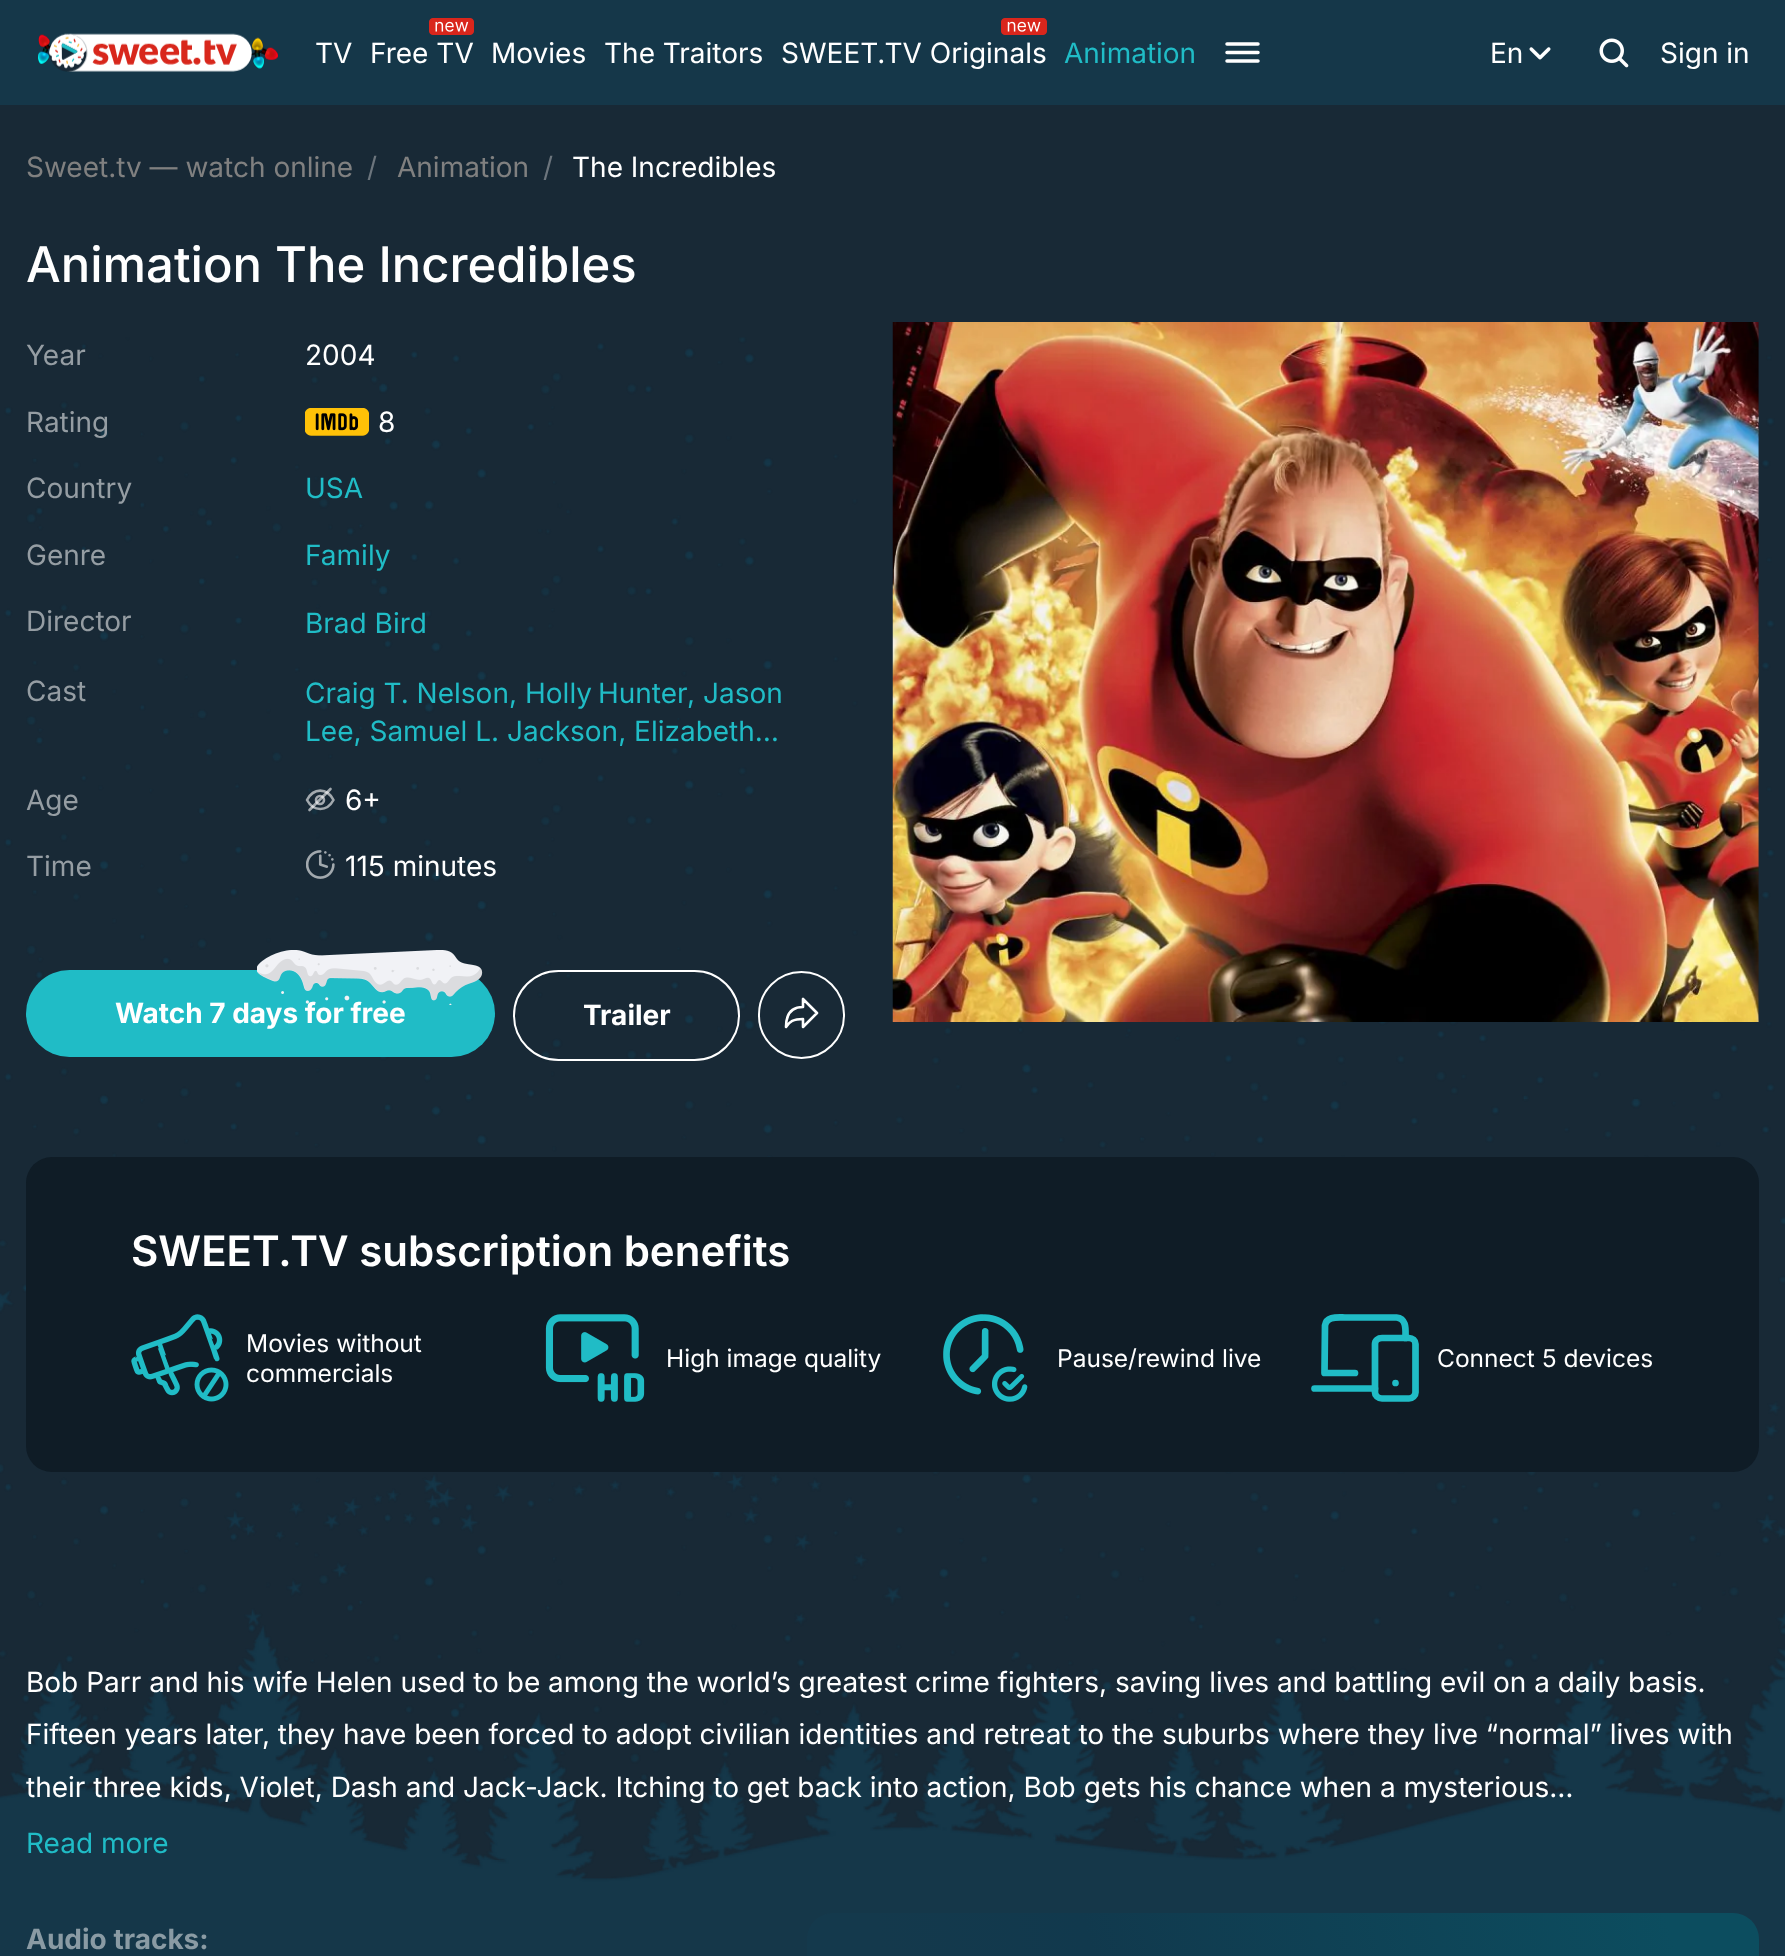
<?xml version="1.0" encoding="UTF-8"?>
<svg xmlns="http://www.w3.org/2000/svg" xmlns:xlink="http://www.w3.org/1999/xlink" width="1785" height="1956">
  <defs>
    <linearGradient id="g1" gradientUnits="userSpaceOnUse" x1="796" y1="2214" x2="1770" y2="1953"><stop offset="0.15" stop-color="#14394c" /><stop offset="0.35" stop-color="#11394d" /><stop offset="0.91" stop-color="#0c4d5f" /></linearGradient>
  </defs>
  <rect width="100%" height="100%" fill="#182936" />
  <rect width="1785" height="105" fill="#153749" />
  <image x="38" y="33" width="240" height="39" xlink:href="image1.png" />
  <image x="429" y="18" width="45" height="17" xlink:href="image2.png" />
  <image x="1001" y="18" width="46" height="17" xlink:href="image3.png" />
  <path d="M 1227 44 h 31 m -31 8.5 h 31 m -31 8.5 h 31" fill="none" stroke="#ffffff" stroke-width="3.5" stroke-linecap="round" />
  <image x="1529" y="47" width="22" height="13" xlink:href="image4.png" />
  <image x="1599" y="38" width="30" height="30" xlink:href="image5.png" />
  <image x="0" y="337" width="1785" height="1619" xlink:href="image13.png" />
  <image x="305" y="408" width="64" height="28" xlink:href="image6.png" />
  <path d="M 333.5 800 c -6.5 12 -20 12 -26.5 0 c 6.5 -12.5 20 -12.5 26.5 0 z" fill="none" stroke="#ffffff" stroke-opacity="0.6" stroke-width="2.6" stroke-linejoin="round" />
  <circle cx="320" cy="800" r="4" fill="none" stroke="#a3a9af" stroke-width="2.6" />
  <path d="M 330.5 789 l -21 21" fill="none" stroke="#ffffff" stroke-opacity="0.6" stroke-width="2.6" stroke-linecap="round" />
  <image x="306" y="850" width="29" height="29" xlink:href="image7.png" />
  <rect x="26" y="970" width="469" height="87" rx="43.5" fill="#20bcc6" />
  <rect x="514" y="971" width="225" height="89" rx="44.5" fill="none" stroke="#ffffff" stroke-width="2" />
  <rect x="759" y="972" width="85" height="86" rx="42.5" fill="none" stroke="#ffffff" stroke-width="2" />
  <path d="M 817 1013 l -14 -14 v 8 c -14 0 -17 10 -17 20 c 3.5 -5.5 7.5 -8 17 -8 v 8 z" fill="none" stroke="#ffffff" stroke-width="2.6" stroke-linejoin="round" />
  <image x="892" y="322" width="867" height="700" xlink:href="image9.png" />
  <rect x="26" y="1157" width="1733" height="315" rx="26" fill="#0f1c26" />
  <image x="131" y="1314" width="98" height="88" xlink:href="image10.png" />
  <image x="545" y="1314" width="100" height="88" xlink:href="image11.png" />
  <image x="943" y="1314" width="85" height="88" xlink:href="image12.png" />
  <path d="M 1355 1373 h -30.5 l 0.5 -47.5 c 1.5 -9.5 12.5 -8 20 -8 h 51.5 c 10.5 1 9 12.5 9 20.5 m -91 50.5 h 60.5" fill="none" stroke="#20bcc6" stroke-width="6.7" stroke-linecap="round" stroke-linejoin="round" />
  <path d="M 1395.5 1383 h 0 m -20.5 -39 c 0 -3.5 3 -6 7 -6 h 27 c 3.5 0 6.5 2.5 6.5 6 v 48.5 c 0 3 -3 6 -6.5 6 h -27 c -4 0 -7 -3 -7 -6 z" fill="none" stroke="#20bcc6" stroke-width="6.7" stroke-linecap="round" stroke-linejoin="round" />
  <rect x="807" y="1913" width="952" height="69" rx="26" fill="url(#g1)" />
  <text x="315" y="63" style="font-family: Inter; font-size: 28px; fill: #ffffff">TV</text>
  <text x="370" y="63" style="font-family: Inter; font-size: 28px; fill: #ffffff">Free TV</text>
  <text x="491" y="63" style="font-family: Inter; font-size: 28px; fill: #ffffff">Movies</text>
  <text x="604" y="63" style="font-family: Inter; font-size: 28px; fill: #ffffff">The Traitors</text>
  <text x="781" y="63" style="font-family: Inter; font-size: 28px; fill: #ffffff">SWEET.TV Originals</text>
  <text x="1064" y="63" style="font-family: Inter; font-size: 28px; fill: #20bcc6">Animation</text>
  <text x="1490" y="63" style="font-family: Inter; font-size: 28px; fill: #ffffff">En</text>
  <text x="1660" y="63" style="font-family: Inter; font-size: 28px; fill: #ffffff">Sign in</text>
  <text x="26" y="177" style="font-family: Inter; font-size: 28px; fill: #808080">Sweet.tv — watch online</text>
  <text x="367" y="177" style="font-family: Inter; font-size: 28px; fill: #6c757d">/</text>
  <text x="397" y="177" style="font-family: Inter; font-size: 28px; fill: #808080">Animation</text>
  <text x="543" y="177" style="font-family: Inter; font-size: 28px; fill: #6c757d">/</text>
  <text x="572" y="177" style="font-family: Inter; font-size: 28px; fill: #ffffff">The Incredibles</text>
  <text x="26" y="282" style="font-family: Inter; font-size: 49px; font-weight: 500; fill: #ffffff">Animation The Incredibles</text>
  <text x="26" y="365" style="font-family: Inter; font-size: 28px; fill: #959da3">Year</text>
  <text x="305" y="365" style="font-family: Inter; font-size: 28px; fill: #ffffff">2004</text>
  <text x="26" y="432" style="font-family: Inter; font-size: 28px; fill: #959da3">Rating</text>
  <text x="378" y="432" style="font-family: Inter; font-size: 28px; fill: #ffffff">8</text>
  <text x="26" y="498" style="font-family: Inter; font-size: 28px; fill: #959da3">Country</text>
  <text x="305" y="498" style="font-family: Inter; font-size: 28px; fill: #20bcc6">USA</text>
  <text x="26" y="565" style="font-family: Inter; font-size: 28px; fill: #959da3">Genre</text>
  <text x="305" y="565" style="font-family: Inter; font-size: 28px; fill: #20bcc6">Family</text>
  <text x="26" y="631" style="font-family: Inter; font-size: 28px; fill: #959da3">Director</text>
  <text x="305" y="633" style="font-family: Inter; font-size: 28px; fill: #20bcc6">Brad Bird</text>
  <text x="26" y="701" style="font-family: Inter; font-size: 28px; fill: #959da3">Cast</text>
  <text x="305" y="703" style="font-family: Inter; font-size: 28px; fill: #20bcc6">Craig T. Nelson,</text>
  <text x="525" y="703" word-spacing="-2" style="font-family: Inter; font-size: 28px; fill: #20bcc6">Holly Hunter</text>
  <text x="687" y="703" style="font-family: Inter; font-size: 28px; fill: #20bcc6">, Jason</text>
  <text x="305" y="741" style="font-family: Inter; font-size: 28px; fill: #20bcc6">Lee, Samuel L. Jackson, Elizabeth…</text>
  <text x="26" y="810" style="font-family: Inter; font-size: 28px; fill: #959da3">Age</text>
  <text x="345" y="810" style="font-family: Inter; font-size: 28px; fill: #ffffff">6+</text>
  <text x="26" y="876" style="font-family: Inter; font-size: 28px; fill: #959da3">Time</text>
  <text x="345" y="876" style="font-family: Inter; font-size: 28px; fill: #ffffff">115 minutes</text>
  <text x="115" y="1023" style="font-family: Inter; font-size: 28px; font-weight: bold; fill: #ffffff">Watch 7 days for free</text>
  <image x="257" y="950" width="226" height="55" xlink:href="image8.png" />
  <text x="583" y="1025" style="font-family: Inter; font-size: 28px; font-weight: bold; fill: #ffffff">Trailer</text>
  <text x="131" y="1266" style="font-family: Inter; font-size: 42px; font-weight: 600; fill: #ffffff">SWEET.TV subscription benefits</text>
  <text x="246" y="1352" style="font-family: Inter; font-size: 24.5px; fill: #ffffff">Movies without</text>
  <text x="246" y="1382" style="font-family: Inter; font-size: 24.5px; fill: #ffffff">commercials</text>
  <text x="666" y="1367" style="font-family: Inter; font-size: 24.5px; fill: #ffffff">High image quality</text>
  <text x="1057" y="1367" style="font-family: Inter; font-size: 24.5px; fill: #ffffff">Pause/rewind live</text>
  <text x="1437" y="1367" style="font-family: Inter; font-size: 24.5px; fill: #ffffff">Connect 5 devices</text>
  <text x="26" y="1692" style="font-family: Inter; font-size: 28px; fill: #ffffff">Bob Parr and his wife Helen used to be among the world’s greatest crime fighters, saving lives and battling evil on a daily basis.</text>
  <text x="26" y="1744" style="font-family: Inter; font-size: 28px; fill: #ffffff">Fifteen years later, they have been forced to adopt civilian identities and retreat to the suburbs where they live “normal” lives with</text>
  <text x="26" y="1797" style="font-family: Inter; font-size: 28px; fill: #ffffff">their three kids, Violet, Dash and Jack-Jack. Itching to get back into action, Bob gets his chance when a mysterious…</text>
  <text x="26" y="1853" style="font-family: Inter; font-size: 28px; fill: #20bcc6">Read more</text>
  <text x="26" y="1949" style="font-family: Inter; font-size: 28px; font-weight: bold; fill: #8a9ba4">Audio tracks:</text>
</svg>
